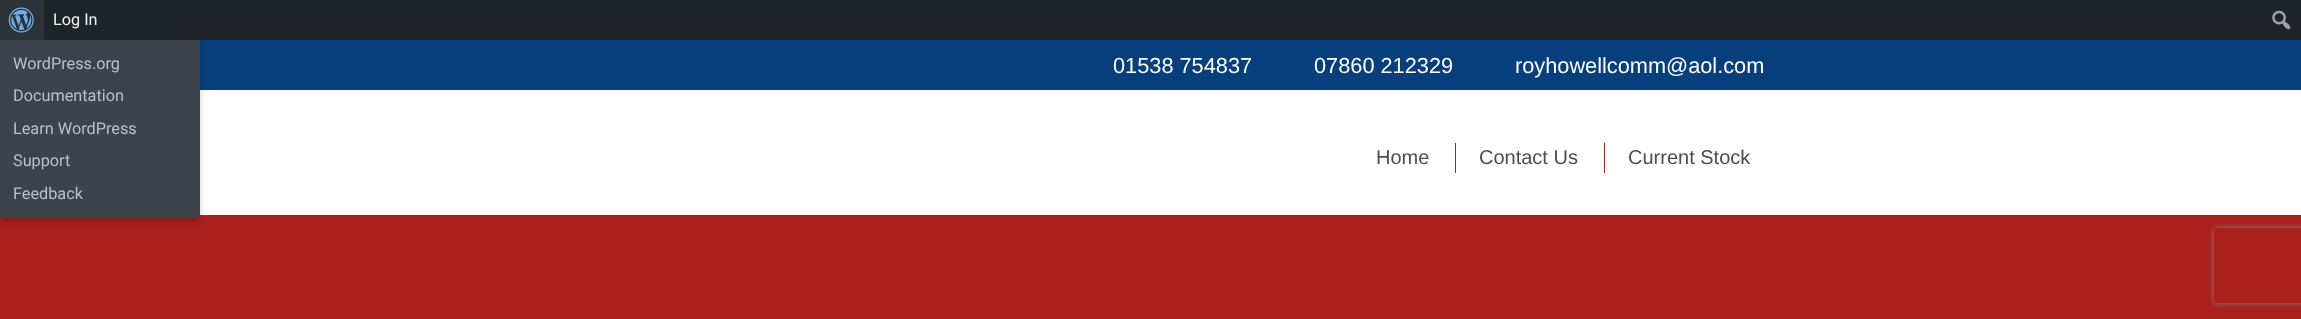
<?xml version="1.0" encoding="UTF-8"?>
<svg xmlns="http://www.w3.org/2000/svg" xmlns:xlink="http://www.w3.org/1999/xlink" width="2301" height="319">
  <defs>
    <clipPath id="clip1"><path d="M 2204 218 h 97 v 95 h -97 z m 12.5 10 h 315 c 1.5 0 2.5 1 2.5 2.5 v 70 c 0 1.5 -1 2.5 -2.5 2.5 h -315 c -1.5 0 -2.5 -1 -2.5 -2.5 v -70 c 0 -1.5 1 -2.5 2.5 -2.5 z" clip-rule="evenodd" /></clipPath>
  </defs>
  <rect width="100%" height="100%" fill="#ffffff" />
  <rect x="44" width="2257" height="40" fill="#1d2327" />
  <rect width="44" height="40" fill="#2c3338" />
  <image x="8" y="7" width="26" height="26" xlink:href="image1.png" />
  <rect x="200" y="40" width="2101" height="50" fill="#063f7c" />
  <rect y="215" width="2301" height="104" fill="#a9201d" />
  <rect y="44" width="200" height="177" fill="#000000" fill-opacity="0.2" filter="blur(3px)" />
  <rect y="40" width="200" height="178" fill="#3c434a" />
  <image x="2272" y="10" width="19" height="20" xlink:href="image2.png" />
  <rect x="1455" y="143" width="1" height="30" fill="#a9201d" />
  <rect x="1604" y="143" width="1" height="30" fill="#a9201d" />
  <g clip-path="url(#clip1)">
    <rect x="2214" y="228" width="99" height="75" rx="2.5" fill="#808080" filter="blur(3px)" />
  </g>
  <text x="53" y="25" style="font-family: Roboto; font-size: 16.25px; fill: #f0f0f1">Log In</text>
  <text x="13" y="69" style="font-family: Roboto; font-size: 16.25px; fill: #bac0c7">WordPress.org</text>
  <text x="13" y="101" style="font-family: Roboto; font-size: 16.25px; fill: #bac0c7">Documentation</text>
  <text x="13" y="134" style="font-family: Roboto; font-size: 16.25px; fill: #bac0c7">Learn WordPress</text>
  <text x="13" y="166" style="font-family: Roboto; font-size: 16.25px; fill: #bac0c7">Support</text>
  <text x="13" y="199" style="font-family: Roboto; font-size: 16.25px; fill: #bac0c7">Feedback</text>
  <text x="1113" y="73" style="font-family: Liberation Sans; font-size: 21.75px; fill: #ffffff">01538 754837</text>
  <text x="1314" y="73" style="font-family: Liberation Sans; font-size: 21.75px; fill: #ffffff">07860 212329</text>
  <text x="1515" y="73" style="font-family: Liberation Sans; font-size: 21.75px; fill: #ffffff">royhowellcomm@aol.com</text>
  <text x="1376" y="164" style="font-family: Liberation Sans; font-size: 20px; fill: #4d4d4d">Home</text>
  <text x="1479" y="164" style="font-family: Liberation Sans; font-size: 20px; fill: #4d4d4d">Contact Us</text>
  <text x="1628" y="164" style="font-family: Liberation Sans; font-size: 20px; fill: #4d4d4d">Current Stock</text>
</svg>
